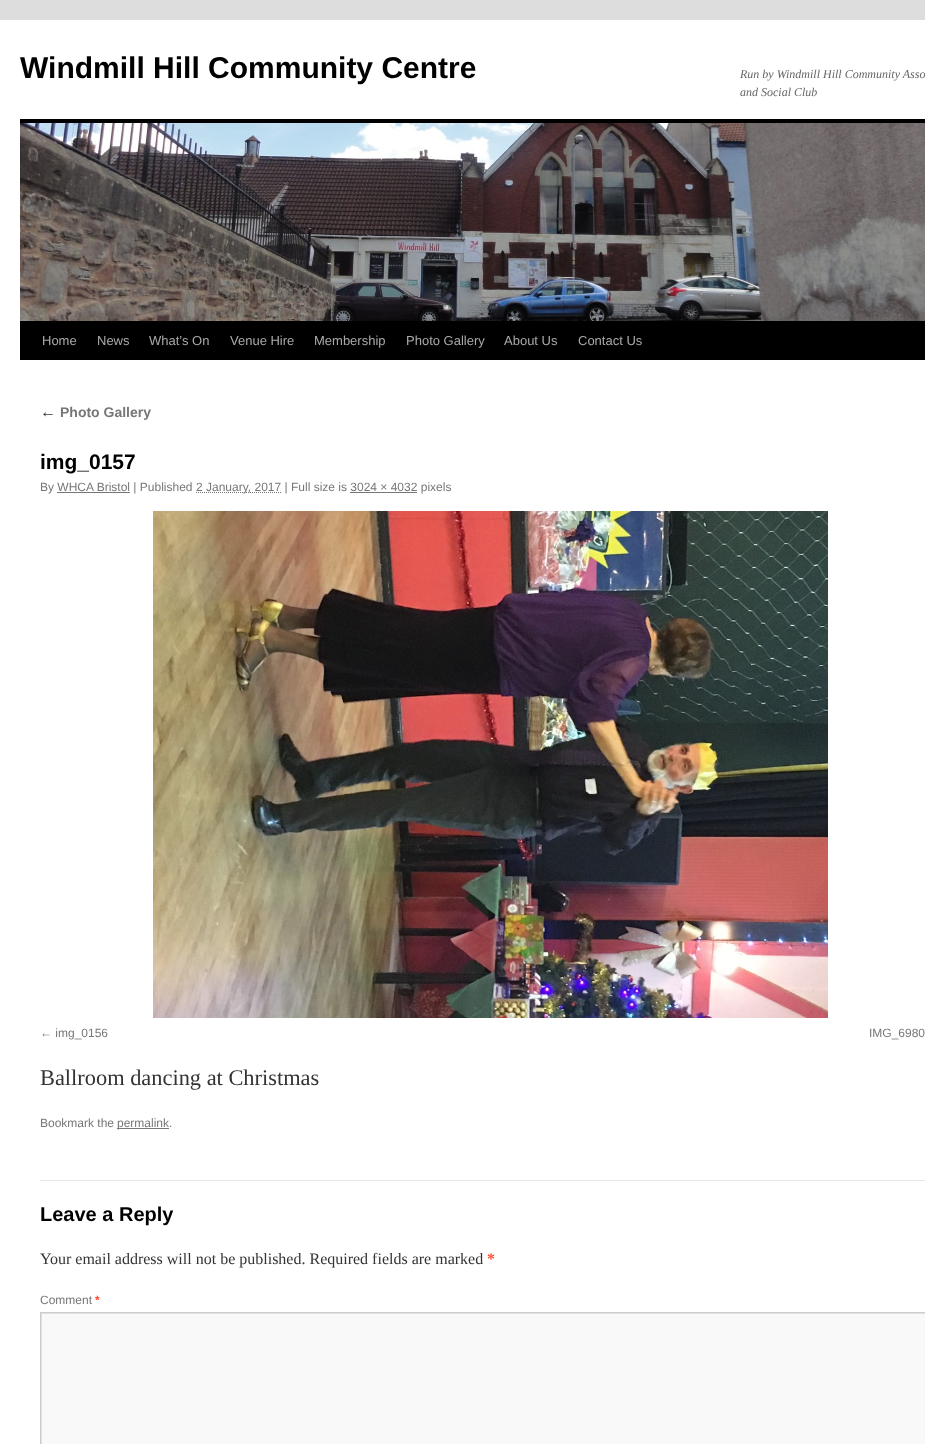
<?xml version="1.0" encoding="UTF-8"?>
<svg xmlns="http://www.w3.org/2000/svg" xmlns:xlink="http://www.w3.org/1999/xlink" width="925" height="1444">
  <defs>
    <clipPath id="clip1"><rect x="41" y="1313" width="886" height="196" /></clipPath>
  </defs>
  <rect width="100%" height="100%" fill="#dddddd" />
  <rect y="20" width="925" height="1424" fill="#ffffff" />
  <rect x="20" y="119" width="905" height="4" fill="#000000" />
  <rect x="20" y="321" width="905" height="39" fill="#000000" />
  <image x="20" y="123" width="905" height="198" xlink:href="image1.png" />
  <path d="M 196 492.5 h 85" fill="none" stroke="#777777" stroke-dasharray="1 1" />
  <rect x="57" y="492" width="73" height="1" fill="#777777" />
  <rect x="350" y="492" width="67" height="1" fill="#777777" />
  <image x="153" y="511" width="675" height="507" xlink:href="image2.png" />
  <rect x="117" y="1128" width="52" height="1" fill="#777777" />
  <rect x="40" y="1180" width="885" height="1" fill="#e7e7e7" />
  <rect x="42" y="1314" width="883" height="130" fill="#f9f9f9" />
  <g clip-path="url(#clip1)">
    <path d="M -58 1214 h 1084 v 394 h -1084 z m 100 100 h 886 v 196 h -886 z" fill="#e0e0e0" fill-rule="evenodd" />
  </g>
  <rect x="40.5" y="1312.5" width="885" height="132" fill="none" stroke="#cccccc" />
  <text x="20" y="78" style="font-family: Liberation Sans; font-size: 30px; font-weight: bold; fill: #000000">Windmill Hill Community Centre</text>
  <text x="740" y="78" style="font-family: Liberation Serif; font-size: 12px; font-style: italic; fill: #666666">Run by Windmill Hill Community Asso</text>
  <text x="740" y="96" style="font-family: Liberation Serif; font-size: 12px; font-style: italic; fill: #666666">and Social Club</text>
  <text x="42" y="345" style="font-family: Liberation Sans; font-size: 13px; fill: #aaaaaa">Home</text>
  <text x="97" y="345" style="font-family: Liberation Sans; font-size: 13px; fill: #aaaaaa">News</text>
  <text x="149" y="345" style="font-family: Liberation Sans; font-size: 13px; fill: #aaaaaa">What’s On</text>
  <text x="230" y="345" style="font-family: Liberation Sans; font-size: 13px; fill: #aaaaaa">Venue Hire</text>
  <text x="314" y="345" style="font-family: Liberation Sans; font-size: 13px; fill: #aaaaaa">Membership</text>
  <text x="406" y="345" style="font-family: Liberation Sans; font-size: 13px; fill: #aaaaaa">Photo Gallery</text>
  <text x="504" y="345" style="font-family: Liberation Sans; font-size: 13px; fill: #aaaaaa">About Us</text>
  <text x="578" y="345" style="font-family: Liberation Sans; font-size: 13px; fill: #aaaaaa">Contact Us</text>
  <text x="40" y="417" style="font-family: Liberation Serif; font-size: 16px; font-style: italic; fill: #333333">←</text>
  <text x="60" y="417" style="font-family: Liberation Sans; font-size: 14px; font-weight: bold; fill: #777777">Photo Gallery</text>
  <text x="40" y="469" style="font-family: Liberation Sans; font-size: 21px; font-weight: bold; fill: #000000">img_0157</text>
  <text x="40" y="491" style="font-family: Liberation Sans; font-size: 12px; fill: #777777">By WHCA Bristol | Published</text>
  <text x="196" y="491" style="font-family: Liberation Sans; font-size: 12px; fill: #777777">2 January, 2017 | Full size is 3024 × 4032 pixels</text>
  <text x="40" y="1037" style="font-family: Liberation Sans; font-size: 12px; fill: #777777">← img_0156</text>
  <text x="869" y="1037" style="font-family: Liberation Sans; font-size: 12px; fill: #777777">IMG_6980</text>
  <text x="40" y="1085" style="font-family: Liberation Serif; font-size: 22.4px; fill: #333333">Ballroom dancing at Christmas</text>
  <text x="40" y="1127" style="font-family: Liberation Sans; font-size: 12px; fill: #777777">Bookmark the</text>
  <text x="117" y="1127" style="font-family: Liberation Sans; font-size: 12px; fill: #777777">permalink.</text>
  <text x="40" y="1221" style="font-family: Liberation Sans; font-size: 20px; font-weight: bold; fill: #000000">Leave a Reply</text>
  <text x="40" y="1264" style="font-family: Liberation Serif; font-size: 16px; fill: #333333">Your email address will not be published. Required fields are marked</text>
  <text x="487" y="1264" style="font-family: Liberation Serif; font-size: 16px; font-weight: bold; fill: #ff4b33">*</text>
  <text x="40" y="1304" style="font-family: Liberation Sans; font-size: 12px; fill: #777777">Comment</text>
  <text x="95" y="1304" style="font-family: Liberation Sans; font-size: 12px; font-weight: bold; fill: #ff4b33">*</text>
</svg>
